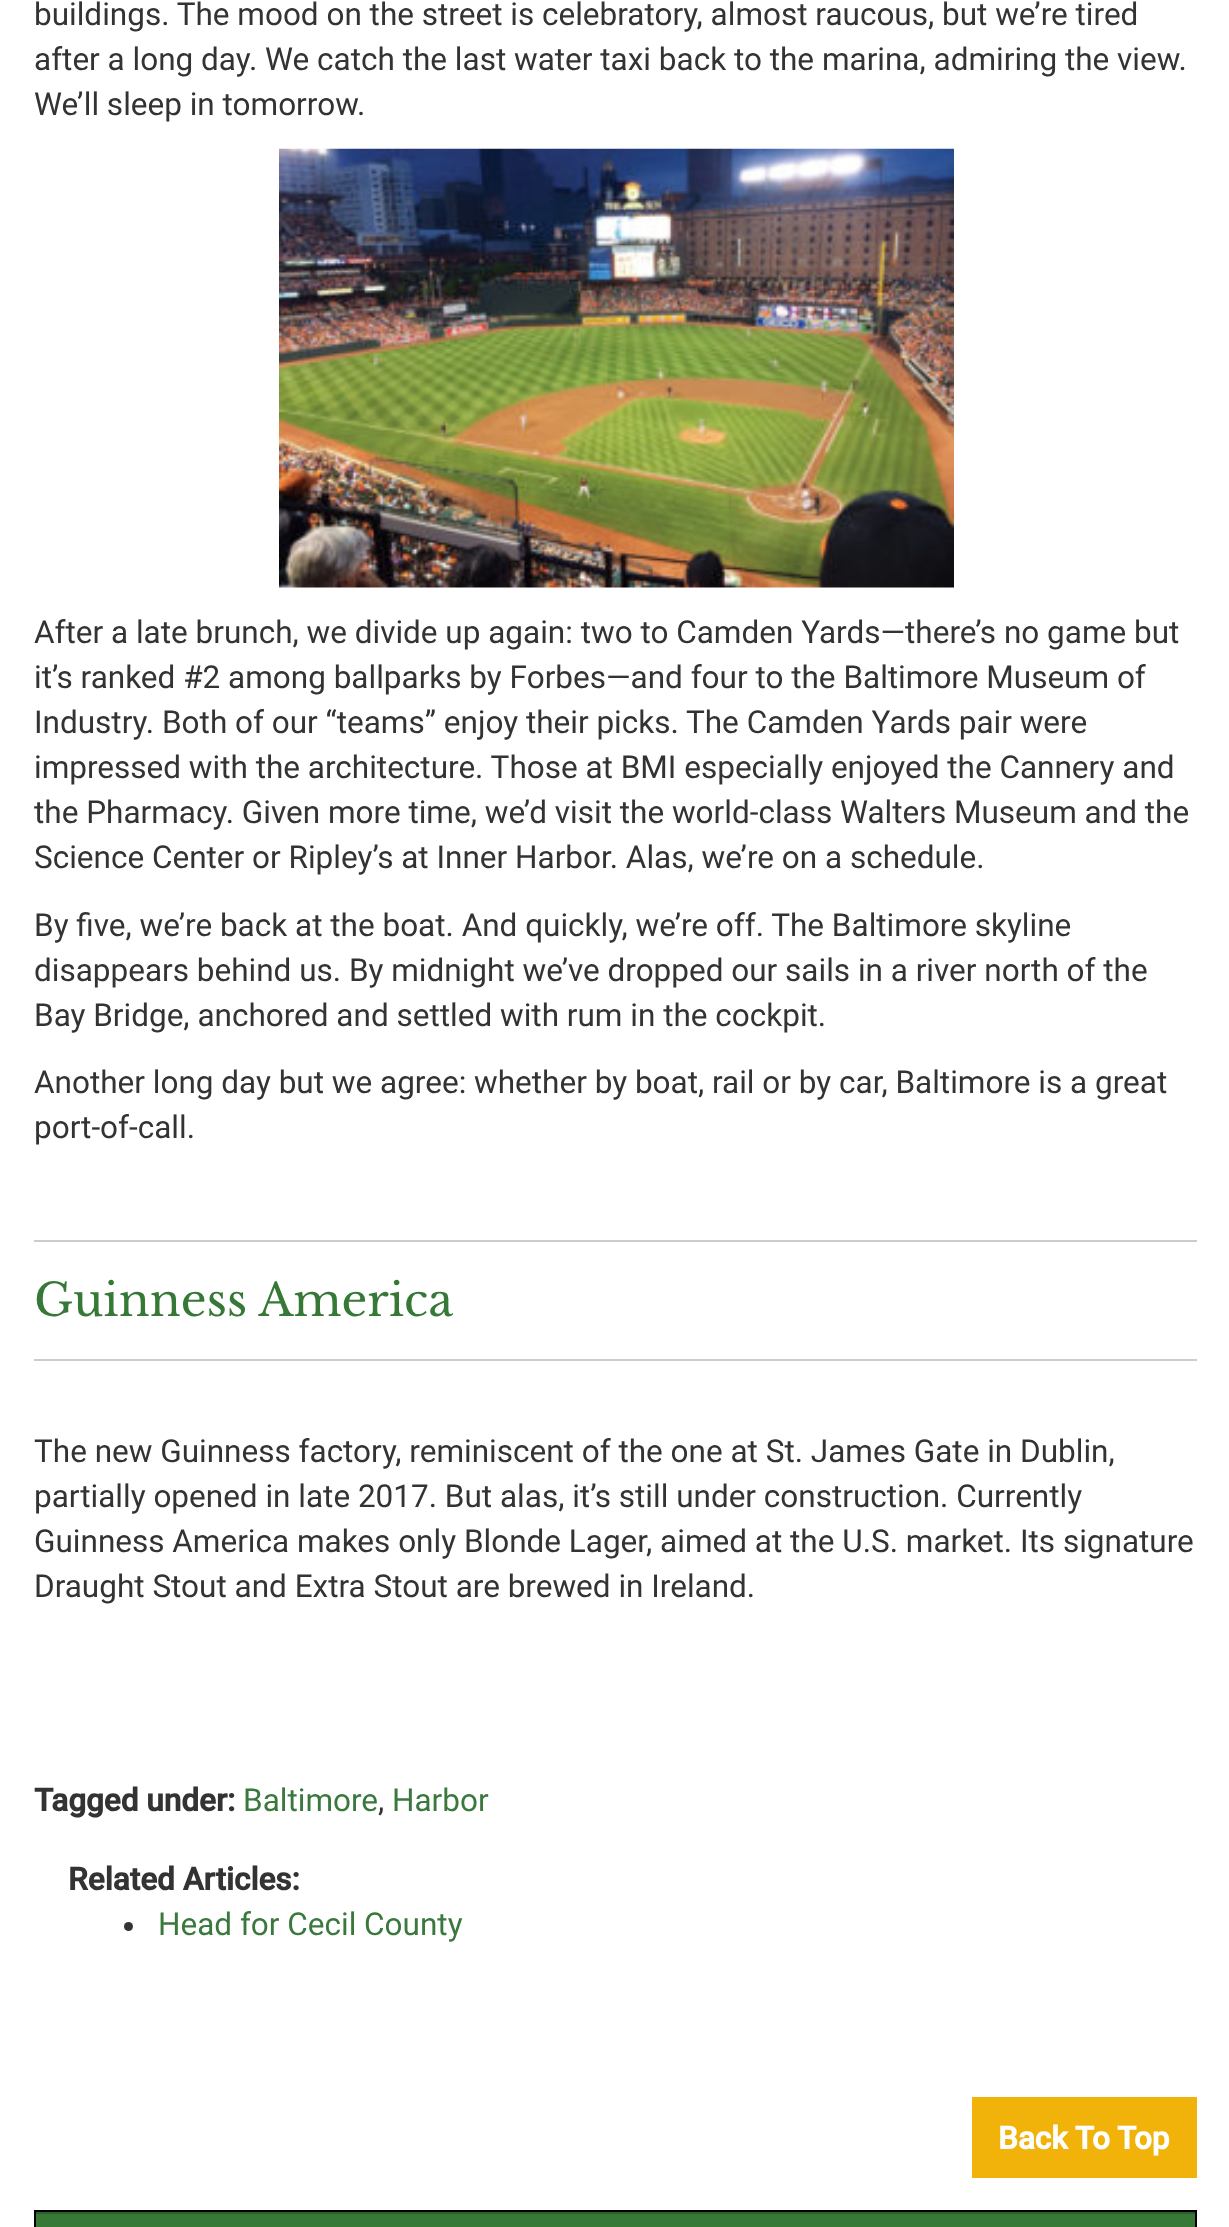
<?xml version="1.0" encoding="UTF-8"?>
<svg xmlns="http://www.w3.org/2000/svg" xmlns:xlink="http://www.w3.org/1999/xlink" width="1229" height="2227">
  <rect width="100%" height="100%" fill="#ffffff" />
  <image x="279" y="148" width="675" height="440" xlink:href="image1.png" />
  <rect x="34" y="1240" width="1163" height="2" fill="#cccccc" />
  <rect x="34" y="1359" width="1163" height="2" fill="#cccccc" />
  <circle cx="128.5" cy="1926.5" r="4.5" fill="#333333" />
  <rect x="972" y="2097" width="225" height="81" fill="#f1b30a" />
  <rect x="36" y="2214" width="1159" height="13" fill="#367836" />
  <rect x="35" y="2211" width="1161" height="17" fill="none" stroke="#000000" stroke-width="2" />
  <rect x="36" y="2212" width="1159" height="2" fill="#2b602b" />
  <text x="34" y="25" style="font-family: Roboto; font-size: 31.5px; fill: #333333">buildings. The mood on the street is celebratory, almost raucous, but we’re tired</text>
  <text x="34" y="70" style="font-family: Roboto; font-size: 31.5px; fill: #333333">after a long day. We catch the last water taxi back to the marina, admiring the view.</text>
  <text x="34" y="115" style="font-family: Roboto; font-size: 31.5px; fill: #333333">We’ll sleep in tomorrow.</text>
  <text x="34" y="643" style="font-family: Roboto; font-size: 31.5px; fill: #333333">After a late brunch, we divide up again: two to Camden Yards—there’s no game but</text>
  <text x="34" y="688" style="font-family: Roboto; font-size: 31.5px; fill: #333333">it’s ranked #2 among ballparks by Forbes—and four to the Baltimore Museum of</text>
  <text x="34" y="733" style="font-family: Roboto; font-size: 31.5px; fill: #333333">Industry. Both of our “teams” enjoy their picks. The Camden Yards pair were</text>
  <text x="34" y="778" style="font-family: Roboto; font-size: 31.5px; fill: #333333">impressed with the architecture. Those at BMI especially enjoyed the Cannery and</text>
  <text x="34" y="823" style="font-family: Roboto; font-size: 31.5px; fill: #333333">the Pharmacy. Given more time, we’d visit the world-class Walters Museum and the</text>
  <text x="34" y="868" style="font-family: Roboto; font-size: 31.5px; fill: #333333">Science Center or Ripley’s at Inner Harbor. Alas, we’re on a schedule.</text>
  <text x="34" y="936" style="font-family: Roboto; font-size: 31.5px; fill: #333333">By five, we’re back at the boat. And quickly, we’re off. The Baltimore skyline</text>
  <text x="34" y="981" style="font-family: Roboto; font-size: 31.5px; fill: #333333">disappears behind us. By midnight we’ve dropped our sails in a river north of the</text>
  <text x="34" y="1026" style="font-family: Roboto; font-size: 31.5px; fill: #333333">Bay Bridge, anchored and settled with rum in the cockpit.</text>
  <text x="34" y="1093" style="font-family: Roboto; font-size: 31.5px; fill: #333333">Another long day but we agree: whether by boat, rail or by car, Baltimore is a great</text>
  <text x="34" y="1138" style="font-family: Roboto; font-size: 31.5px; fill: #333333">port-of-call.</text>
  <text x="34" y="1316" style="font-family: Libre Baskerville; font-size: 45px; fill: #367836">Guinness America</text>
  <text x="34" y="1462" style="font-family: Roboto; font-size: 31.5px; fill: #333333">The new Guinness factory, reminiscent of the one at St. James Gate in Dublin,</text>
  <text x="34" y="1507" style="font-family: Roboto; font-size: 31.5px; fill: #333333">partially opened in late 2017. But alas, it’s still under construction. Currently</text>
  <text x="34" y="1552" style="font-family: Roboto; font-size: 31.5px; fill: #333333">Guinness America makes only Blonde Lager, aimed at the U.S. market. Its signature</text>
  <text x="34" y="1597" style="font-family: Roboto; font-size: 31.5px; fill: #333333">Draught Stout and Extra Stout are brewed in Ireland.</text>
  <text x="34" y="1811" style="font-family: Roboto; font-size: 31.5px; font-weight: bold; fill: #333333">Tagged under:</text>
  <text x="243" y="1811" style="font-family: Roboto; font-size: 31.5px; fill: #3a783e">Baltimore</text>
  <text x="378" y="1811" style="font-family: Roboto; font-size: 31.5px; fill: #333333">,</text>
  <text x="392" y="1811" style="font-family: Roboto; font-size: 31.5px; fill: #3a783e">Harbor</text>
  <text x="68" y="1890" style="font-family: Roboto; font-size: 31.5px; font-weight: bold; fill: #333333">Related Articles:</text>
  <text x="158" y="1935" style="font-family: Roboto; font-size: 31.5px; fill: #3a783e">Head for Cecil County</text>
  <text x="998" y="2149" style="font-family: Roboto; font-size: 31.5px; font-weight: bold; fill: #ffffff">Back To Top</text>
</svg>
